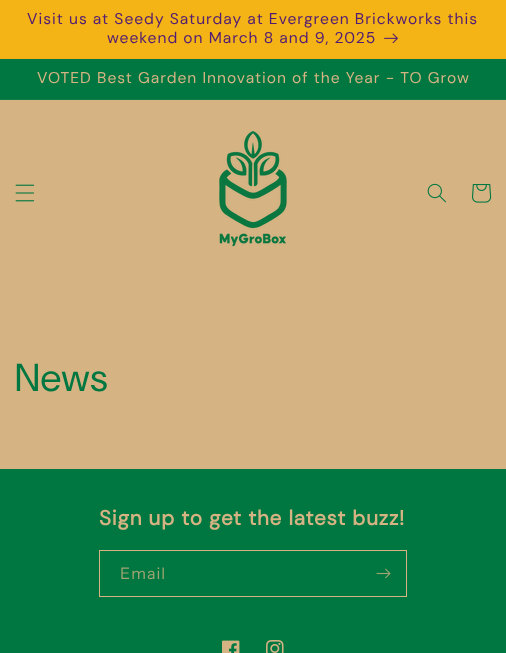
<?xml version="1.0" encoding="UTF-8"?>
<svg xmlns="http://www.w3.org/2000/svg" xmlns:xlink="http://www.w3.org/1999/xlink" width="506" height="653">
  <rect width="100%" height="100%" fill="#d5b383" />
  <rect y="58" width="506" height="1" fill="#f0b118" />
  <rect width="506" height="58" fill="#f4b416" />
  <image x="384" y="33" width="14" height="11" xlink:href="image1.png" />
  <rect y="59" width="506" height="40" fill="#007740" />
  <rect y="99" width="506" height="1" fill="#117c45" />
  <image x="15" y="184" width="20" height="18" xlink:href="image2.png" />
  <image x="219" y="131" width="68" height="116" xlink:href="image3.png" />
  <image x="427" y="183" width="19" height="20" xlink:href="image4.png" />
  <image x="472" y="184" width="20" height="19" xlink:href="image5.png" />
  <rect y="469" width="506" height="184" fill="#007740" />
  <rect x="99.5" y="550.5" width="307" height="46" fill="none" stroke="#d5b383" />
  <image x="376" y="568" width="15" height="11" xlink:href="image6.png" />
  <image x="222" y="640" width="18" height="13" xlink:href="image7.png" />
  <image x="266" y="640" width="18" height="13" xlink:href="image8.png" />
  <text x="27" y="24" style="font-family: 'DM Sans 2'; font-size: 15.6px; letter-spacing: 1px; fill: #511c74">Visit us at Seedy Saturday at Evergreen Brickworks this</text>
  <text x="107" y="43" style="font-family: 'DM Sans 2'; font-size: 15.6px; letter-spacing: 1px; fill: #511c74">weekend on March 8 and 9, 2025</text>
  <text x="37" y="83" style="font-family: 'DM Sans 2'; font-size: 15.6px; letter-spacing: 1px; fill: #d5b383">VOTED Best Garden Innovation of the Year - TO Grow</text>
  <text x="15" y="391" style="font-family: DM Sans; font-size: 39px; letter-spacing: 0.75px; fill: #007740">News</text>
  <text x="99" y="525" style="font-family: DM Sans; font-size: 20.75px; font-weight: bold; letter-spacing: 0.75px; fill: #d5b383">Sign up to get the latest buzz!</text>
  <text x="120" y="579" style="font-family: Instrument Sans; font-size: 16px; letter-spacing: 1px; fill: #a0a472">Email</text>
</svg>
